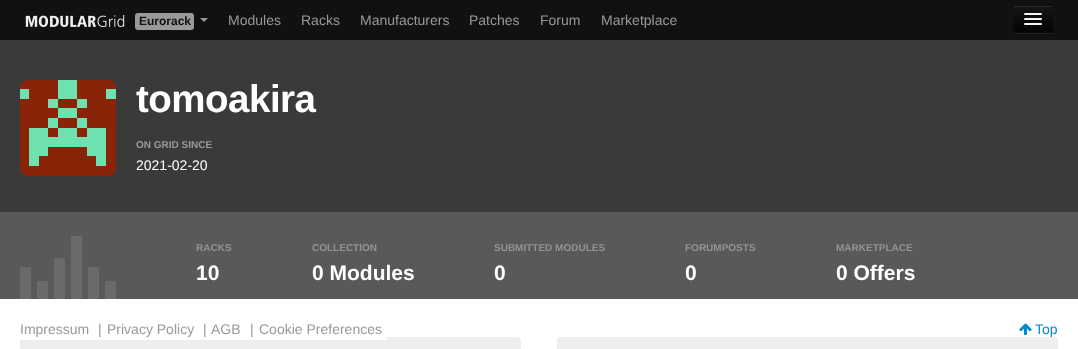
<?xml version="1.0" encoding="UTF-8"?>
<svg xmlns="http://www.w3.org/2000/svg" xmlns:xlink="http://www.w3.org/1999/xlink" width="1078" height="349">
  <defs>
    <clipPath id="clip1"><rect x="1013" y="5" width="40" height="28" rx="2" /></clipPath>
    <linearGradient id="g1" gradientUnits="userSpaceOnUse" x1="1033" y1="6" x2="1033" y2="32"><stop offset="0" stop-color="#151515" /><stop offset="1" stop-color="#040404" /></linearGradient>
  </defs>
  <rect width="100%" height="100%" fill="#ffffff" />
  <rect width="1078" height="40" fill="#111111" />
  <image x="25" y="15" width="100" height="12" xlink:href="image1.png" />
  <rect x="135" y="13" width="59" height="17" rx="3" fill="#999999" />
  <path d="M 200 18 h 8 l -4 4 z" fill="#999999" />
  <path d="M 1013 31 c 0 4 4 3 8 3 h 24 c 4 0 8 1 8 -3 c 0 1 -1 2 -2 2 h -36 c -1 0 -2 -1 -2 -2 z" fill="#232323" />
  <rect x="1013" y="5" width="40" height="28" rx="2" fill="#0e0e0e" />
  <g clip-path="url(#clip1)">
    <rect x="1013" y="6" width="40" height="26" fill="url(#g1)" />
  </g>
  <path d="M 1015 7 h 36.5 l 0.5 1 c 0 -3.5 -4 -2 -7 -2 h -24 c -3.5 0 -7 -1.5 -7 2 z" fill="#2c2c2c" />
  <path d="M 1052 32 l -1 0.5 h -36 l -1 -0.5" fill="none" stroke="#0b0b0b" />
  <path d="M 1024 14.5 c -1 2 3.5 1.5 3.5 1.5 h 11 c 0 0 4.5 0.5 3.5 -1.5 c -1 1 -7.5 0.5 -9 0.5 c -1.5 0 -8 0.5 -9 -0.5 z" fill="#0b0b0b" />
  <rect x="1024" y="13" width="18" height="2" rx="1" fill="#f5f5f5" />
  <path d="M 1024 19.5 c -1 2 3.5 1.5 3.5 1.5 h 11 c 0 0 4.5 0.5 3.5 -1.5 c -1 1 -7.5 0.5 -9 0.5 c -1.5 0 -8 0.5 -9 -0.5 z" fill="#090909" />
  <rect x="1024" y="18" width="18" height="2" rx="1" fill="#f5f5f5" />
  <rect x="1024" y="23" width="18" height="2" rx="1" fill="#f5f5f5" />
  <rect y="40" width="1078" height="172" fill="#3a3a3a" />
  <image x="20" y="80" width="96" height="96" xlink:href="image2.png" />
  <rect y="212" width="1078" height="87" fill="#595959" />
  <rect x="20" y="267" width="11" height="32" fill="#6a6a6a" />
  <rect x="37" y="281" width="11" height="18" fill="#6a6a6a" />
  <rect x="54" y="258" width="11" height="41" fill="#6a6a6a" />
  <rect x="71" y="236" width="11" height="63" fill="#6a6a6a" />
  <rect x="88" y="267" width="11" height="32" fill="#6a6a6a" />
  <rect x="105" y="281" width="11" height="18" fill="#6a6a6a" />
  <path d="M 24 337 h 493 c 2 0 4 2 4 4 v 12 h -501 v -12 c 0 -2 2 -4 4 -4 z" fill="#eeeeee" />
  <rect x="20" y="337" width="367" height="3" fill="#ffffff" />
  <image x="1019" y="323" width="13" height="12" xlink:href="image3.png" />
  <path d="M 561 337 h 493 c 2 0 4 2 4 4 v 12 h -501 v -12 c 0 -2 2 -4 4 -4 z" fill="#eeeeee" />
  <text x="139" y="25" style="font-family: Liberation Sans; font-size: 12px; font-weight: bold; fill: #111111">Eurorack</text>
  <text x="228" y="25" style="font-family: Liberation Sans; font-size: 14px; fill: #999999">Modules</text>
  <text x="301" y="25" style="font-family: Liberation Sans; font-size: 14px; fill: #999999">Racks</text>
  <text x="360" y="25" style="font-family: Liberation Sans; font-size: 14px; fill: #999999">Manufacturers</text>
  <text x="469" y="25" style="font-family: Liberation Sans; font-size: 14px; fill: #999999">Patches</text>
  <text x="540" y="25" style="font-family: Liberation Sans; font-size: 14px; fill: #999999">Forum</text>
  <text x="601" y="25" style="font-family: Liberation Sans; font-size: 14px; fill: #999999">Marketplace</text>
  <text x="136" y="112" style="font-family: Liberation Sans; font-size: 38.5px; font-weight: bold; letter-spacing: -0.5px; fill: #ffffff">tomoakira</text>
  <text x="136" y="148" style="font-family: Liberation Sans; font-size: 10px; font-weight: bold; fill: #999999">ON GRID SINCE</text>
  <text x="136" y="170" style="font-family: Liberation Sans; font-size: 14px; fill: #ffffff">2021-02-20</text>
  <text x="196" y="251" style="font-family: Liberation Sans; font-size: 10px; font-weight: bold; fill: #939393">RACKS</text>
  <text x="196" y="280" style="font-family: Liberation Sans; font-size: 21px; font-weight: bold; fill: #ffffff">10</text>
  <text x="312" y="251" style="font-family: Liberation Sans; font-size: 10px; font-weight: bold; fill: #939393">COLLECTION</text>
  <text x="312" y="280" style="font-family: Liberation Sans; font-size: 21px; font-weight: bold; fill: #ffffff">0 Modules</text>
  <text x="494" y="251" style="font-family: Liberation Sans; font-size: 10px; font-weight: bold; fill: #939393">SUBMITTED MODULES</text>
  <text x="494" y="280" style="font-family: Liberation Sans; font-size: 21px; font-weight: bold; fill: #ffffff">0</text>
  <text x="685" y="251" style="font-family: Liberation Sans; font-size: 10px; font-weight: bold; fill: #939393">FORUMPOSTS</text>
  <text x="685" y="280" style="font-family: Liberation Sans; font-size: 21px; font-weight: bold; fill: #ffffff">0</text>
  <text x="836" y="251" style="font-family: Liberation Sans; font-size: 10px; font-weight: bold; fill: #939393">MARKETPLACE</text>
  <text x="836" y="280" style="font-family: Liberation Sans; font-size: 21px; font-weight: bold; fill: #ffffff">0 Offers</text>
  <text x="20" y="334" style="font-family: Liberation Sans; font-size: 14px; fill: #999999">Impressum</text>
  <text x="98" y="334" style="font-family: Liberation Sans; font-size: 14px; fill: #999999">|</text>
  <text x="107" y="334" style="font-family: Liberation Sans; font-size: 14px; fill: #999999">Privacy Policy</text>
  <text x="203" y="334" style="font-family: Liberation Sans; font-size: 14px; fill: #999999">|</text>
  <text x="211" y="334" style="font-family: Liberation Sans; font-size: 14px; fill: #999999">AGB</text>
  <text x="250" y="334" style="font-family: Liberation Sans; font-size: 14px; fill: #999999">|</text>
  <text x="259" y="334" style="font-family: Liberation Sans; font-size: 14px; fill: #999999">Cookie Preferences</text>
  <text x="1035" y="334" style="font-family: Liberation Sans; font-size: 14px; fill: #0088cc">Top</text>
</svg>
